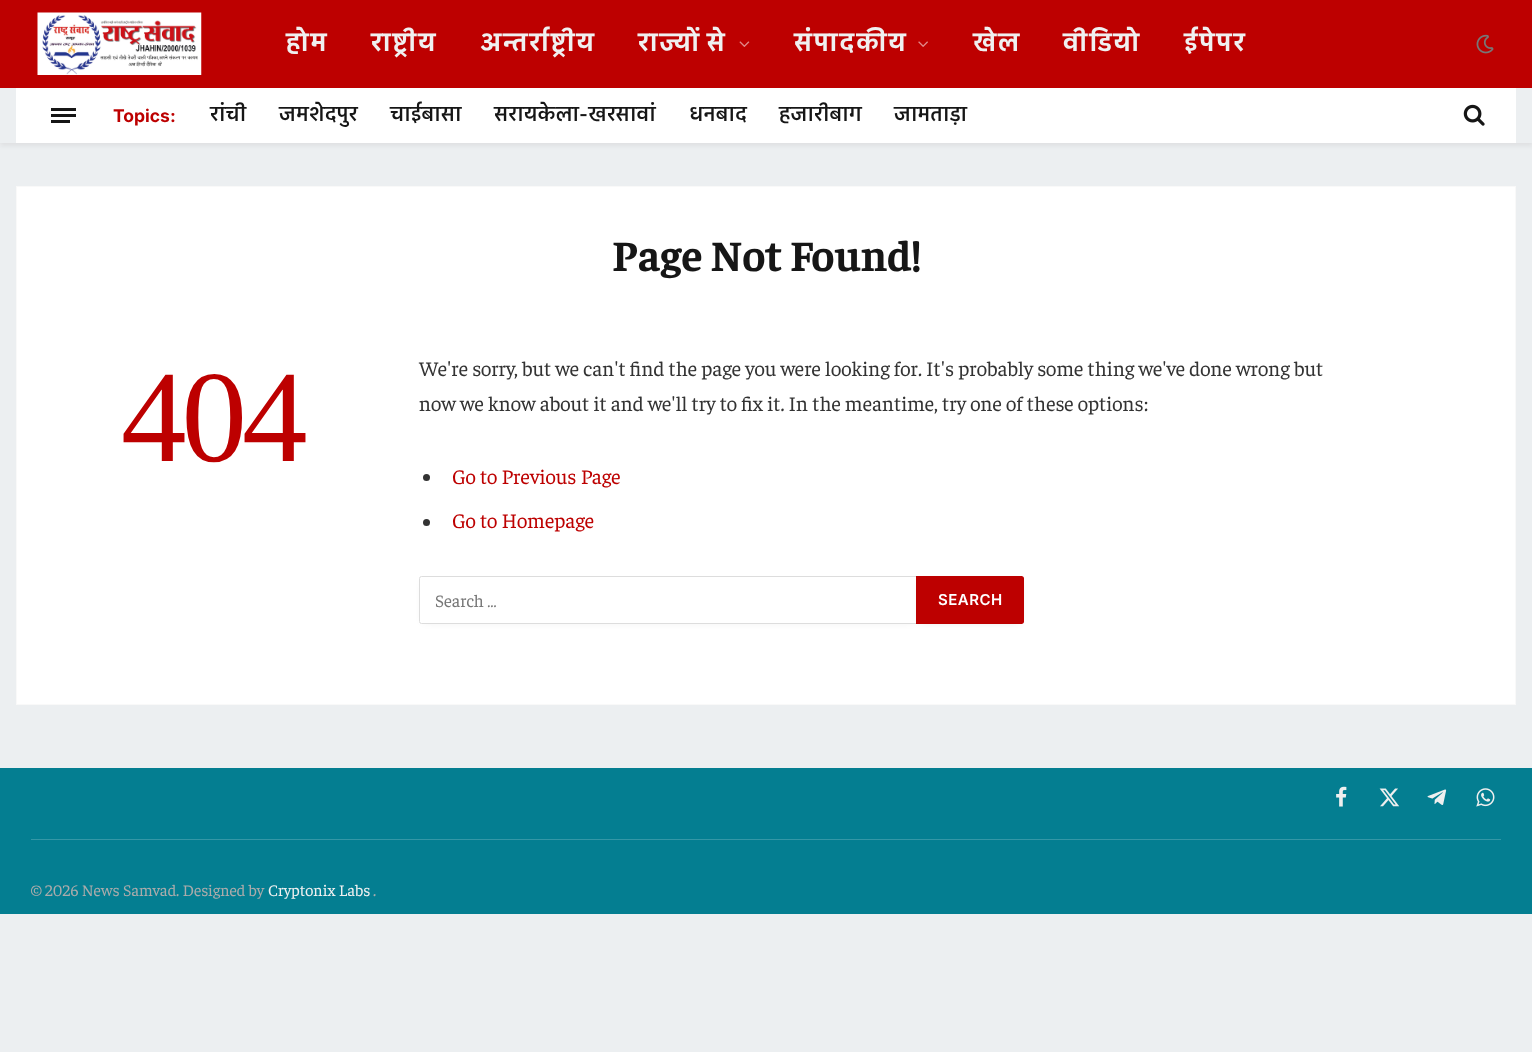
<?xml version="1.0" encoding="UTF-8"?>
<svg xmlns="http://www.w3.org/2000/svg" xmlns:xlink="http://www.w3.org/1999/xlink" width="1532" height="1052">
  <defs>
    <clipPath id="clip1"><path d="M 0 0 h 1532 v 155 h -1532 z m 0 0 h 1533 v 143 h -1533 z" clip-rule="evenodd" /></clipPath>
  </defs>
  <rect width="100%" height="100%" fill="#eceff1" />
  <g clip-path="url(#clip1)">
    <rect y="4" width="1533" height="142" fill="#0a0000" fill-opacity="0.06" filter="blur(2.5px)" />
  </g>
  <rect width="1532" height="88" fill="#bd0000" />
  <image x="37" y="12" width="165" height="63" xlink:href="image1.png" />
  <image x="739" y="41" width="11" height="6" xlink:href="image2.png" />
  <image x="918" y="41" width="10" height="6" xlink:href="image3.png" />
  <image x="1476" y="34" width="18" height="20" xlink:href="image4.png" />
  <rect x="16" y="88" width="1500" height="55" fill="#ffffff" />
  <rect x="51" y="120" width="19" height="3" fill="#161616" />
  <rect x="51" y="108" width="25" height="3" fill="#161616" />
  <rect x="51" y="114" width="25" height="3" fill="#161616" />
  <image x="1463" y="104" width="22" height="22" xlink:href="image5.png" />
  <rect x="16.5" y="186.5" width="1499" height="518" fill="#ffffff" stroke="#f9f9f9" />
  <circle cx="426.5" cy="477.5" r="3.5" fill="#333333" />
  <circle cx="426.5" cy="522.5" r="3.5" fill="#333333" />
  <rect x="424" y="584" width="490" height="37" fill="#000000" fill-opacity="0.1" filter="blur(4.5px)" />
  <rect x="419.5" y="576.5" width="499" height="47" rx="2" fill="#ffffff" stroke="#dddddd" />
  <rect x="921" y="584" width="98" height="37" fill="#000000" fill-opacity="0.16" filter="blur(4.5px)" />
  <path d="M 916 576 h 105.5 c 1.5 0 2.5 1 2.5 2.5 v 43 c 0 1.5 -1 2.5 -2.5 2.5 h -105.5 z" fill="#bd0000" />
  <rect y="768" width="1532" height="146" fill="#047e91" />
  <image x="1336" y="786" width="11" height="21" xlink:href="image6.png" />
  <image x="1379" y="788" width="21" height="19" xlink:href="image7.png" />
  <image x="1427" y="789" width="20" height="16" xlink:href="image8.png" />
  <image x="1476" y="788" width="19" height="19" xlink:href="image9.png" />
  <rect x="31" y="839" width="1470" height="1" fill="#3497a6" />
  <text x="286" y="51" style="font-family: IBM Plex Sans Devanagari; font-size: 25px; font-weight: bold; letter-spacing: 1.75px; fill: #f0f0f0">होम</text>
  <text x="371" y="51" style="font-family: IBM Plex Sans Devanagari; font-size: 25px; font-weight: bold; letter-spacing: 1.75px; fill: #f0f0f0">राष्ट्रीय</text>
  <text x="480" y="51" style="font-family: IBM Plex Sans Devanagari; font-size: 25px; font-weight: bold; letter-spacing: 1.75px; fill: #f0f0f0">अन्तर्राष्ट्रीय</text>
  <text x="638" y="51" word-spacing="-2" style="font-family: IBM Plex Sans Devanagari; font-size: 25px; font-weight: bold; letter-spacing: 1.75px; fill: #f0f0f0">राज्यों से</text>
  <text x="794" y="51" style="font-family: IBM Plex Sans Devanagari; font-size: 25px; font-weight: bold; letter-spacing: 1.75px; fill: #f0f0f0">संपादकीय</text>
  <text x="973" y="51" style="font-family: IBM Plex Sans Devanagari; font-size: 25px; font-weight: bold; letter-spacing: 1.75px; fill: #f0f0f0">खेल</text>
  <text x="1063" y="51" style="font-family: IBM Plex Sans Devanagari; font-size: 25px; font-weight: bold; letter-spacing: 1.75px; fill: #f0f0f0">वीडियो</text>
  <text x="1184" y="51" style="font-family: IBM Plex Sans Devanagari; font-size: 25px; font-weight: bold; letter-spacing: 1.75px; fill: #f0f0f0">ईपेपर</text>
  <text x="113" y="122" style="font-family: Inter; font-size: 17.5px; font-weight: bold; fill: #bd0000">Topics:</text>
  <text x="210" y="121" style="font-family: IBM Plex Sans Devanagari; font-size: 20px; font-weight: 600; fill: #161616">रांची</text>
  <text x="279" y="121" style="font-family: IBM Plex Sans Devanagari; font-size: 20px; font-weight: 600; fill: #161616">जमशेदपुर</text>
  <text x="390" y="121" style="font-family: IBM Plex Sans Devanagari; font-size: 20px; font-weight: 600; fill: #161616">चाईबासा</text>
  <text x="494" y="121" style="font-family: IBM Plex Sans Devanagari; font-size: 20px; font-weight: 600; fill: #161616">सरायकेला-खरसावां</text>
  <text x="689" y="121" style="font-family: IBM Plex Sans Devanagari; font-size: 20px; font-weight: 600; fill: #161616">धनबाद</text>
  <text x="779" y="121" style="font-family: IBM Plex Sans Devanagari; font-size: 20px; font-weight: 600; fill: #161616">हजारीबाग</text>
  <text x="894" y="121" style="font-family: IBM Plex Sans Devanagari; font-size: 20px; font-weight: 600; fill: #161616">जामताड़ा</text>
  <text x="612" y="271" style="font-family: Faustina; font-size: 43.75px; font-weight: bold; fill: #161616">Page Not Found!</text>
  <text x="121" y="461" style="font-family: Liberation Serif; font-size: 131px; letter-spacing: -5px; fill: #bd0000">404</text>
  <text x="419" y="376" style="font-family: Faustina; font-size: 20.75px; fill: #333333">We're sorry, but we can't find the page you were looking for. It's probably some thing we've done wrong but</text>
  <text x="419" y="411" style="font-family: Faustina; font-size: 20.75px; fill: #333333">now we know about it and we'll try to fix it. In the meantime, try one of these options:</text>
  <text x="452" y="484" style="font-family: Faustina; font-size: 20.75px; fill: #bd0000">Go to Previous Page</text>
  <text x="452" y="528" style="font-family: Faustina; font-size: 20.75px; fill: #bd0000">Go to Homepage</text>
  <text x="435" y="607" style="font-family: Faustina; font-size: 17.5px; fill: #777777">Search …</text>
  <text x="938" y="605" style="font-family: Inter; font-size: 15px; font-weight: 600; letter-spacing: 0.5px; fill: #ffffff">SEARCH</text>
  <text x="31" y="896" style="font-family: Faustina; font-size: 16.25px; fill: #ababab">© 2026 News Samvad. Designed by</text>
  <text x="268" y="896" style="font-family: Faustina; font-size: 16.25px; fill: #f0f0f0">Cryptonix Labs</text>
  <text x="373" y="896" style="font-family: Faustina; font-size: 16.25px; fill: #ababab">.</text>
</svg>
